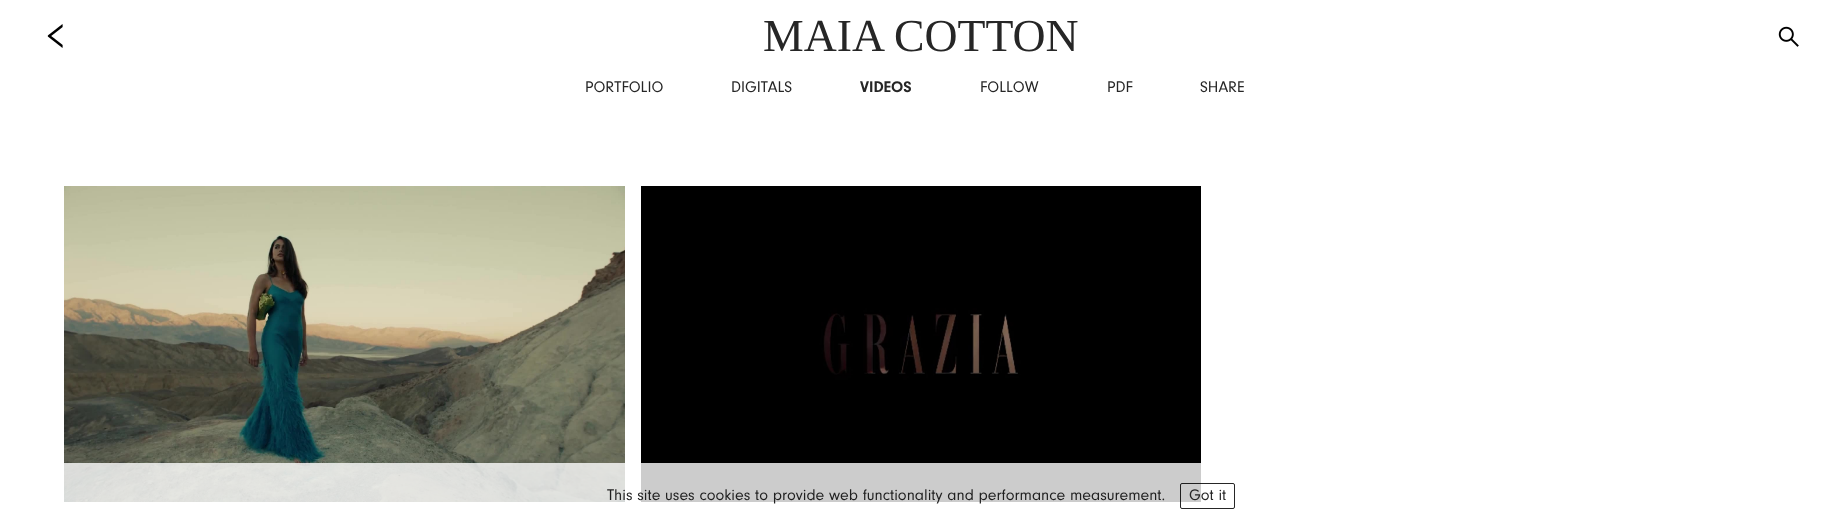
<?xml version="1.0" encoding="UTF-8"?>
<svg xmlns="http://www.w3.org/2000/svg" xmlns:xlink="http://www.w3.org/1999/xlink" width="1842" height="530">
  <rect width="100%" height="100%" fill="#ffffff" />
  <image x="47" y="24" width="16" height="24" xlink:href="image1.png" />
  <image x="1778" y="26" width="21" height="21" xlink:href="image2.png" />
  <image x="64" y="186" width="561" height="316" xlink:href="image3.png" />
  <image x="641" y="186" width="560" height="316" xlink:href="image4.png" />
  <rect x="64" y="463" width="1137" height="39" fill="#ffffff" fill-opacity="0.8" />
  <rect x="1180.5" y="483.5" width="54" height="25" rx="1.5" fill="none" stroke="#000000" stroke-opacity="0.85" />
  <text x="763" y="51" style="font-family: Liberation Serif; font-size: 45.75px; fill: #262626">MAIA COTTON</text>
  <text x="585" y="92" style="font-family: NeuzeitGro; font-size: 16px; fill: #262626">PORTFOLIO</text>
  <text x="731" y="92" style="font-family: NeuzeitGro; font-size: 16px; fill: #262626">DIGITALS</text>
  <text x="860" y="92" style="font-family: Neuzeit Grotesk; font-size: 16px; font-weight: bold; fill: #262626">VIDEOS</text>
  <text x="980" y="92" style="font-family: NeuzeitGro; font-size: 16px; fill: #262626">FOLLOW</text>
  <text x="1107" y="92" style="font-family: NeuzeitGro; font-size: 16px; fill: #262626">PDF</text>
  <text x="1200" y="92" style="font-family: NeuzeitGro; font-size: 16px; fill: #262626">SHARE</text>
  <text x="607" y="500" style="font-family: NeuzeitGro; font-size: 16px; fill: #1f1f1f">This site uses cookies to provide web functionality and performance measurement.</text>
  <text x="1189" y="500" style="font-family: NeuzeitGro; font-size: 16px; fill: #262626">Got it</text>
</svg>
